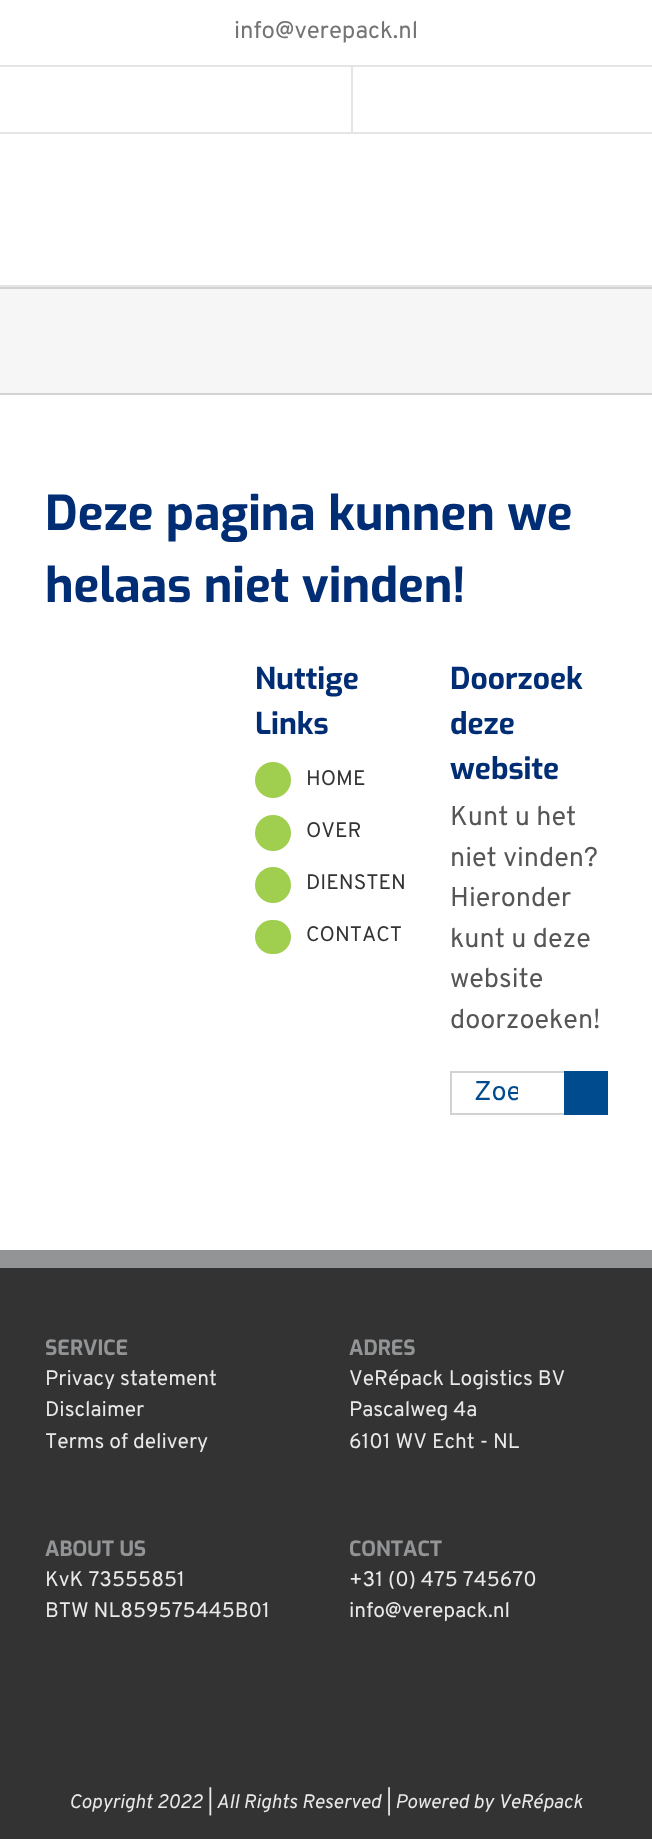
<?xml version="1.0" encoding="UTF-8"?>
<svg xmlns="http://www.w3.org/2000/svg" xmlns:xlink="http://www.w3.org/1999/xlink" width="652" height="1839">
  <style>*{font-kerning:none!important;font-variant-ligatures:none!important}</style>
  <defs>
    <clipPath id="clip1"><rect x="474" y="1076" width="44" height="34" /></clipPath>
  </defs>
  <rect width="100%" height="100%" fill="#ffffff" />
  <rect y="132" width="652" height="2" fill="#e5e5e5" />
  <rect y="65" width="652" height="2" fill="#e5e5e5" />
  <rect x="351" y="66" width="2" height="66" fill="#e5e5e5" />
  <rect y="285" width="652" height="2" fill="#e5e5e5" />
  <rect y="289" width="652" height="104" fill="#f6f6f6" />
  <rect y="287" width="652" height="2" fill="#d2d3d4" />
  <rect y="393" width="652" height="2" fill="#d2d3d4" />
  <circle cx="273" cy="780" r="18" fill="#a0ce4e" />
  <circle cx="273" cy="833" r="18" fill="#a0ce4e" />
  <circle cx="273" cy="885" r="18" fill="#a0ce4e" />
  <rect x="255" y="920" width="36" height="34" rx="17" fill="#a0ce4e" />
  <rect x="450" y="1071" width="114" height="2" fill="#d2d2d2" />
  <rect x="450" y="1113" width="114" height="2" fill="#d2d2d2" />
  <rect x="450" y="1071" width="2" height="44" fill="#d2d2d2" />
  <rect x="564" y="1071" width="44" height="44" fill="#004b8d" />
  <rect y="1268" width="652" height="571" fill="#333333" />
  <rect y="1250" width="652" height="18" fill="#929496" />
  <text x="234" y="38" style="font-family: Overpass; font-size: 24px; fill: #747474">info@verepack.nl</text>
  <text x="45" y="530" style="font-family: Exo; font-size: 48px; font-weight: bold; fill: #002d73">Deze pagina kunnen we</text>
  <text x="45" y="602" style="font-family: Exo; font-size: 48px; font-weight: bold; fill: #002d73">helaas niet vinden!</text>
  <text x="255" y="689" style="font-family: Exo; font-size: 30px; font-weight: bold; fill: #002d73">Nuttige</text>
  <text x="255" y="734" style="font-family: Exo; font-size: 30px; font-weight: bold; fill: #002d73">Links</text>
  <text x="306" y="785" style="font-family: Overpass; font-size: 21px; fill: #333333">HOME</text>
  <text x="306" y="837" style="font-family: Overpass; font-size: 21px; fill: #333333">OVER</text>
  <text x="306" y="889" style="font-family: Overpass; font-size: 21px; fill: #333333">DIENSTEN</text>
  <text x="306" y="941" style="font-family: Overpass; font-size: 21px; fill: #333333">CONTACT</text>
  <text x="450" y="689" style="font-family: Exo; font-size: 30px; font-weight: bold; fill: #002d73">Doorzoek</text>
  <text x="450" y="734" style="font-family: Exo; font-size: 30px; font-weight: bold; fill: #002d73">deze</text>
  <text x="450" y="779" style="font-family: Exo; font-size: 30px; font-weight: bold; fill: #002d73">website</text>
  <text x="450" y="825" style="font-family: Overpass; font-size: 27px; fill: #575656">Kunt u het</text>
  <text x="450" y="866" style="font-family: Overpass; font-size: 27px; fill: #575656">niet vinden?</text>
  <text x="450" y="906" style="font-family: Overpass; font-size: 27px; fill: #575656">Hieronder</text>
  <text x="450" y="947" style="font-family: Overpass; font-size: 27px; fill: #575656">kunt u deze</text>
  <text x="450" y="987" style="font-family: Overpass; font-size: 27px; fill: #575656">website</text>
  <text x="450" y="1028" style="font-family: Overpass; font-size: 27px; fill: #575656">doorzoeken!</text>
  <g clip-path="url(#clip1)">
    <text x="474" y="1100" style="font-family: Overpass; font-size: 27px; fill: #004b8d">Zoe</text>
  </g>
  <text x="45" y="1355" style="font-family: Exo; font-size: 21px; font-weight: bold; fill: #929496">SERVICE</text>
  <text x="45" y="1385" style="font-family: Overpass; font-size: 21px; fill: #e9e9e9">Privacy statement</text>
  <text x="45" y="1416" style="font-family: Overpass; font-size: 21px; fill: #e9e9e9">Disclaimer</text>
  <text x="45" y="1448" style="font-family: Overpass; font-size: 21px; fill: #e9e9e9">Terms of delivery</text>
  <text x="349" y="1355" style="font-family: Exo; font-size: 21px; font-weight: bold; fill: #929496">ADRES</text>
  <text x="349" y="1385" style="font-family: Overpass; font-size: 21px; fill: #e9e9e9">VeRépack Logistics BV</text>
  <text x="349" y="1416" style="font-family: Overpass; font-size: 21px; fill: #e9e9e9">Pascalweg 4a</text>
  <text x="349" y="1448" style="font-family: Overpass; font-size: 21px; fill: #e9e9e9">6101 WV Echt - NL</text>
  <text x="45" y="1556" style="font-family: Exo; font-size: 21px; font-weight: bold; fill: #929496">ABOUT US</text>
  <text x="45" y="1586" style="font-family: Overpass; font-size: 21px; fill: #e9e9e9">KvK 73555851</text>
  <text x="45" y="1617" style="font-family: Overpass; font-size: 21px; fill: #e9e9e9">BTW NL859575445B01</text>
  <text x="349" y="1556" style="font-family: Exo; font-size: 21px; font-weight: bold; fill: #929496">CONTACT</text>
  <text x="349" y="1586" style="font-family: Overpass; font-size: 21px; fill: #e9e9e9">+31 (0) 475 745670</text>
  <text x="349" y="1617" style="font-family: Overpass; font-size: 21px; fill: #e9e9e9">info@verepack.nl</text>
  <text x="69" y="1808" style="font-family: Overpass; font-size: 19.5px; font-style: italic; fill: #e9e9e9">Copyright 2022 | All Rights Reserved | Powered</text>
  <text x="473" y="1808" style="font-family: Overpass; font-size: 19.5px; font-style: italic; fill: #e9e9e9">by VeRépack</text>
</svg>
